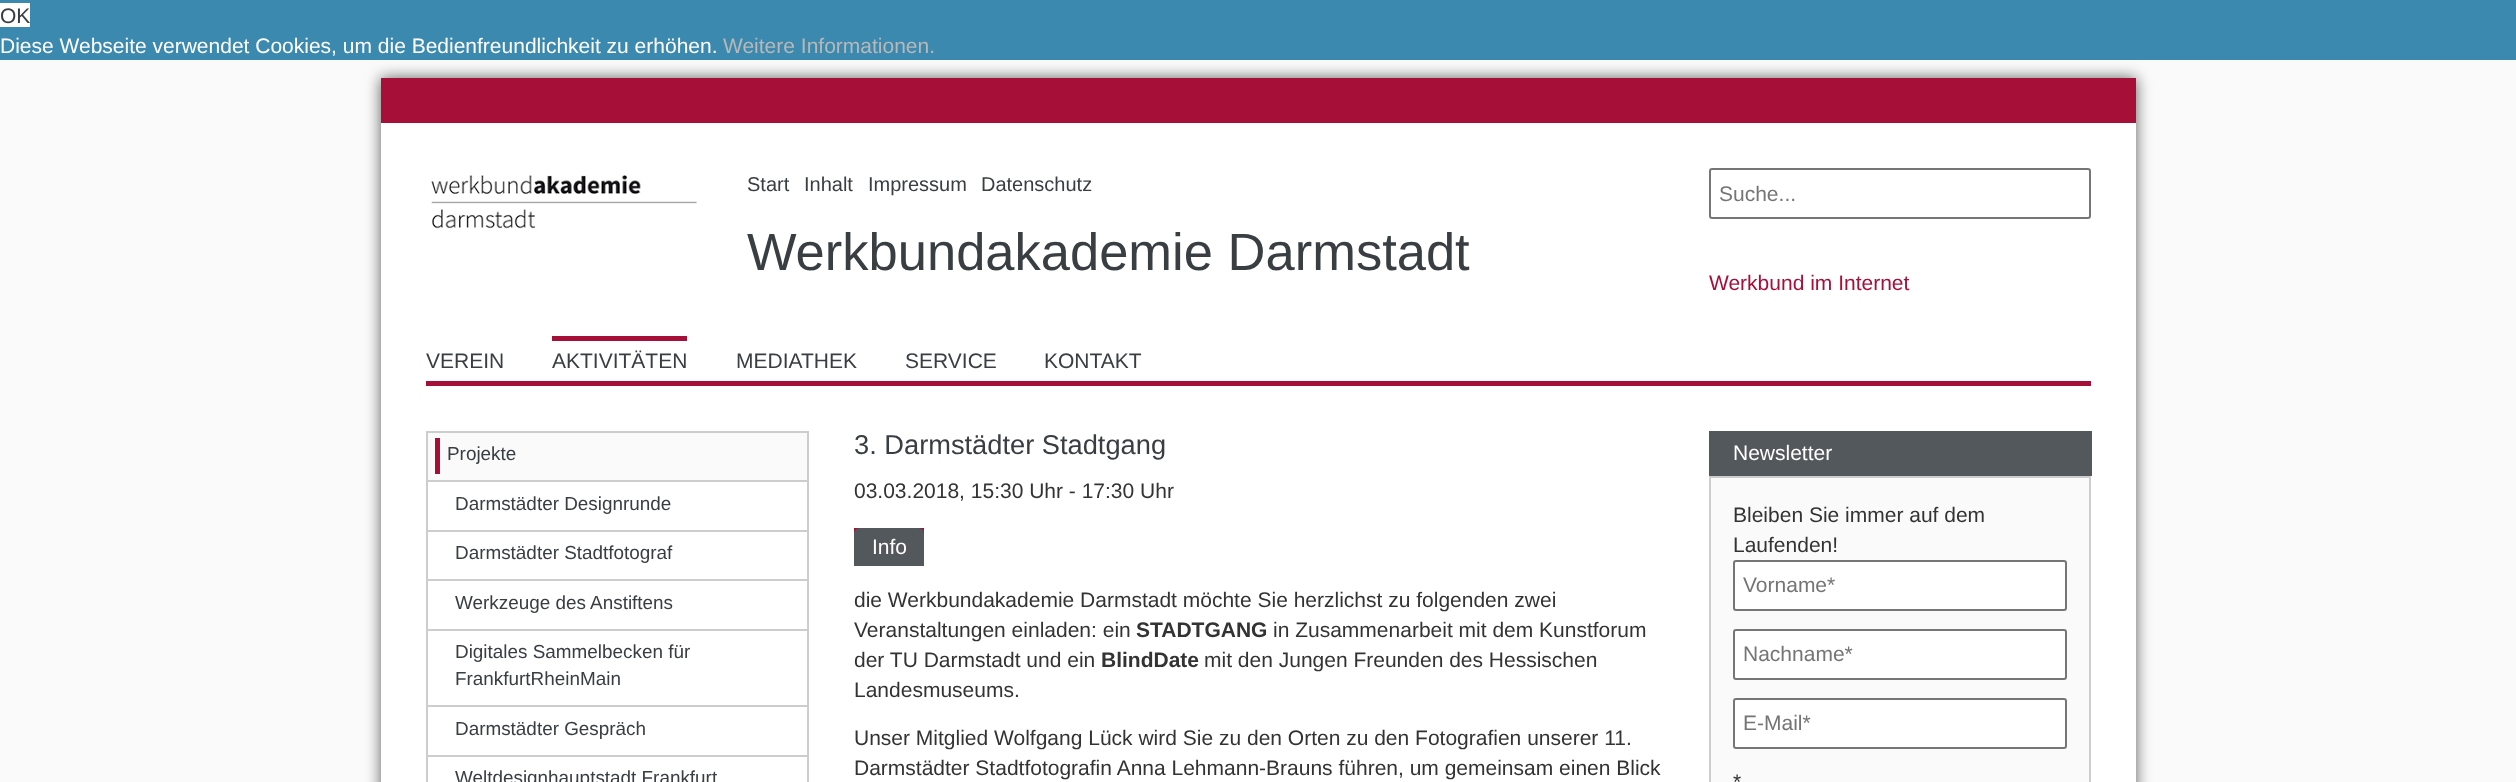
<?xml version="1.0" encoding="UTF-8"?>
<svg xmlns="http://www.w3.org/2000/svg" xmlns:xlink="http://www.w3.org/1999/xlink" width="2516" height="782">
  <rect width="100%" height="100%" fill="#fafafa" />
  <rect width="2516" height="60" fill="#3b89af" />
  <rect y="3" width="30" height="24" fill="#ffffff" />
  <rect x="381" y="78" width="1755" height="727" fill="#5d5d5d" filter="blur(7.5px)" />
  <rect x="381" y="123" width="1755" height="659" fill="#ffffff" />
  <rect x="381" y="78" width="1755" height="45" fill="#a60f38" />
  <image x="431" y="174" width="266" height="55" xlink:href="image1.png" />
  <rect x="1710" y="169" width="380" height="49" rx="2" fill="none" stroke="#767676" stroke-width="2" />
  <rect x="426" y="381" width="1665" height="5" fill="#a60f38" />
  <rect x="552" y="336" width="135" height="5" fill="#a60f38" />
  <rect x="428" y="433" width="379" height="47" fill="#fafafa" />
  <rect x="427" y="432" width="381" height="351" fill="none" stroke="#cdcdcd" stroke-width="2" />
  <rect x="435" y="438" width="5" height="36" fill="#a60f38" />
  <rect x="428" y="480" width="379" height="2" fill="#cdcdcd" />
  <rect x="428" y="530" width="379" height="2" fill="#cdcdcd" />
  <rect x="428" y="579" width="379" height="2" fill="#cdcdcd" />
  <rect x="428" y="629" width="379" height="2" fill="#cdcdcd" />
  <rect x="428" y="705" width="379" height="2" fill="#cdcdcd" />
  <rect x="428" y="755" width="379" height="2" fill="#cdcdcd" />
  <rect x="854" y="528" width="70" height="6" fill="#a60f38" />
  <path d="M 860 529 h 58 c 3 0 5 2 5 5 v 31 h -68 v -31 c 0 -3 2 -5 5 -5 z" fill="#52585b" stroke="#52585b" stroke-width="2" />
  <rect x="1709" y="431" width="383" height="45" fill="#52585b" />
  <rect x="1710" y="477" width="380" height="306" fill="#fafafa" stroke="#cdcdcd" stroke-width="2" />
  <rect x="1734" y="561" width="332" height="49" rx="2" fill="#ffffff" stroke="#767676" stroke-width="2" />
  <rect x="1734" y="630" width="332" height="49" rx="2" fill="#ffffff" stroke="#767676" stroke-width="2" />
  <rect x="1734" y="699" width="332" height="49" rx="2" fill="#ffffff" stroke="#767676" stroke-width="2" />
  <text x="0" y="23" style="font-family: Liberation Sans; font-size: 21px; fill: #383e41">OK</text>
  <text x="0" y="53" style="font-family: Liberation Sans; font-size: 21px; fill: #ffffff">Diese Webseite verwendet Cookies, um die Bedienfreundlichkeit zu erhöhen.</text>
  <text x="723" y="53" style="font-family: Liberation Sans; font-size: 21px; fill: #b8b8b8">Weitere Informationen.</text>
  <text x="747" y="191" style="font-family: Liberation Sans; font-size: 20px; fill: #383e41">Start</text>
  <text x="804" y="191" style="font-family: Liberation Sans; font-size: 20px; fill: #383e41">Inhalt</text>
  <text x="868" y="191" style="font-family: Liberation Sans; font-size: 20px; fill: #383e41">Impressum</text>
  <text x="981" y="191" style="font-family: Liberation Sans; font-size: 20px; fill: #383e41">Datenschutz</text>
  <text x="747" y="270" style="font-family: Liberation Sans; font-size: 52.5px; fill: #383e41">Werkbundakademie Darmstadt</text>
  <text x="1719" y="201" style="font-family: Liberation Sans; font-size: 21px; fill: #757575">Suche...</text>
  <text x="1709" y="290" style="font-family: Liberation Sans; font-size: 21px; fill: #a60f38">Werkbund im Internet</text>
  <text x="426" y="368" style="font-family: Liberation Sans; font-size: 21px; fill: #383e41">VEREIN</text>
  <text x="552" y="368" style="font-family: Liberation Sans; font-size: 21px; fill: #383e41">AKTIVITÄTEN</text>
  <text x="736" y="368" style="font-family: Liberation Sans; font-size: 21px; fill: #383e41">MEDIATHEK</text>
  <text x="905" y="368" style="font-family: Liberation Sans; font-size: 21px; fill: #383e41">SERVICE</text>
  <text x="1044" y="368" style="font-family: Liberation Sans; font-size: 21px; fill: #383e41">KONTAKT</text>
  <text x="447" y="460" style="font-family: Liberation Sans; font-size: 18.9px; fill: #383e41">Projekte</text>
  <text x="455" y="510" style="font-family: Liberation Sans; font-size: 18.9px; fill: #383e41">Darmstädter Designrunde</text>
  <text x="455" y="559" style="font-family: Liberation Sans; font-size: 18.9px; fill: #383e41">Darmstädter Stadtfotograf</text>
  <text x="455" y="609" style="font-family: Liberation Sans; font-size: 18.9px; fill: #383e41">Werkzeuge des Anstiftens</text>
  <text x="455" y="658" style="font-family: Liberation Sans; font-size: 18.9px; fill: #383e41">Digitales Sammelbecken für</text>
  <text x="455" y="685" style="font-family: Liberation Sans; font-size: 18.9px; fill: #383e41">FrankfurtRheinMain</text>
  <text x="455" y="735" style="font-family: Liberation Sans; font-size: 18.9px; fill: #383e41">Darmstädter Gespräch</text>
  <text x="455" y="784" style="font-family: Liberation Sans; font-size: 18.9px; fill: #383e41">Weltdesignhauptstadt Frankfurt</text>
  <text x="854" y="454" style="font-family: Liberation Sans; font-size: 27.25px; fill: #383e41">3. Darmstädter Stadtgang</text>
  <text x="854" y="498" style="font-family: Liberation Sans; font-size: 21px; fill: #333333">03.03.2018, 15:30 Uhr - 17:30 Uhr</text>
  <text x="872" y="554" style="font-family: Liberation Sans; font-size: 21px; fill: #ffffff">Info</text>
  <text x="854" y="607" style="font-family: Liberation Sans; font-size: 21px; fill: #333333">die Werkbundakademie Darmstadt möchte Sie herzlichst zu folgenden zwei</text>
  <text x="854" y="637" style="font-family: Liberation Sans; font-size: 21px; fill: #333333">Veranstaltungen einladen: ein</text>
  <text x="1136" y="637" style="font-family: Liberation Sans; font-size: 21px; font-weight: bold; fill: #333333">STADTGANG</text>
  <text x="1273" y="637" style="font-family: Liberation Sans; font-size: 21px; fill: #333333">in Zusammenarbeit mit dem Kunstforum</text>
  <text x="854" y="667" style="font-family: Liberation Sans; font-size: 21px; fill: #333333">der TU Darmstadt und ein</text>
  <text x="1101" y="667" style="font-family: Liberation Sans; font-size: 21px; font-weight: bold; fill: #333333">BlindDate</text>
  <text x="1204" y="667" style="font-family: Liberation Sans; font-size: 21px; fill: #333333">mit den Jungen Freunden des Hessischen</text>
  <text x="854" y="697" style="font-family: Liberation Sans; font-size: 21px; fill: #333333">Landesmuseums.</text>
  <text x="854" y="745" style="font-family: Liberation Sans; font-size: 21px; fill: #333333">Unser Mitglied Wolfgang Lück wird Sie zu den Orten zu den Fotografien unserer 11.</text>
  <text x="854" y="775" style="font-family: Liberation Sans; font-size: 21px; fill: #333333">Darmstädter Stadtfotografin Anna Lehmann-Brauns führen, um gemeinsam einen Blick</text>
  <text x="1733" y="460" style="font-family: Liberation Sans; font-size: 21px; fill: #ffffff">Newsletter</text>
  <text x="1733" y="522" style="font-family: Liberation Sans; font-size: 21px; fill: #333333">Bleiben Sie immer auf dem</text>
  <text x="1733" y="552" style="font-family: Liberation Sans; font-size: 21px; fill: #333333">Laufenden!</text>
  <text x="1743" y="592" style="font-family: Liberation Sans; font-size: 21px; fill: #757575">Vorname*</text>
  <text x="1743" y="661" style="font-family: Liberation Sans; font-size: 21px; fill: #757575">Nachname*</text>
  <text x="1743" y="730" style="font-family: Liberation Sans; font-size: 21px; fill: #757575">E-Mail*</text>
  <text x="1733" y="789" style="font-family: Liberation Sans; font-size: 21px; fill: #333333">*</text>
</svg>
